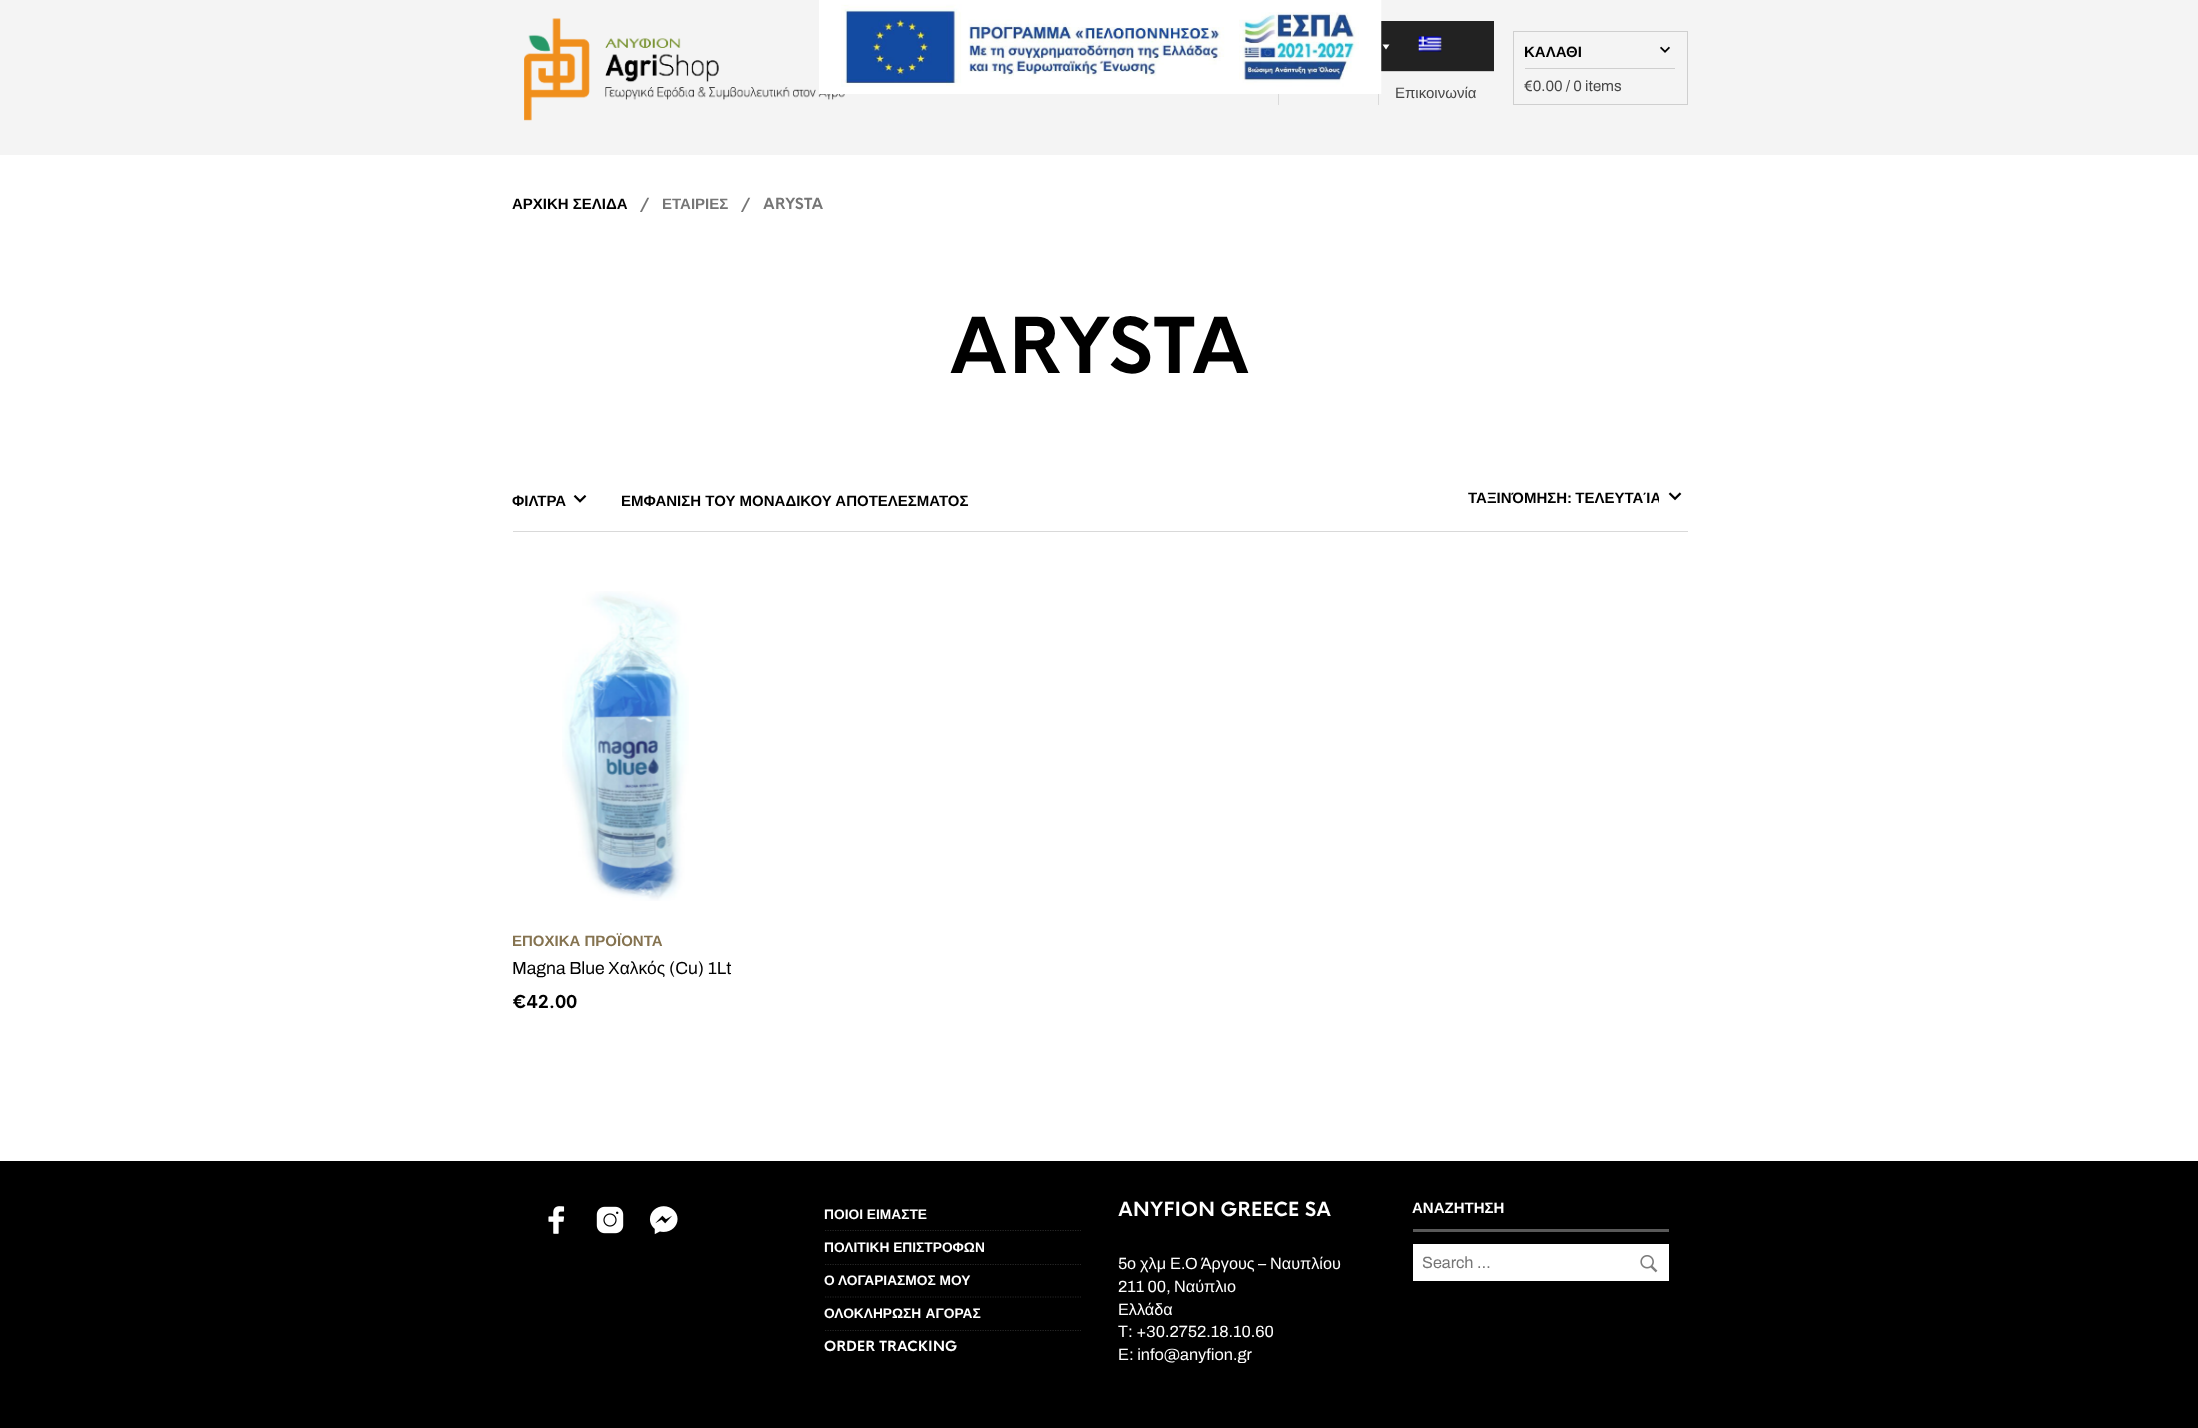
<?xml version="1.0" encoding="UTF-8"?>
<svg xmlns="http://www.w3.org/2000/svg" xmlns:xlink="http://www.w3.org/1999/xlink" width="2198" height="1428">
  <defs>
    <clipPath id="clip1"><rect x="1298" y="488" width="361" height="20" /></clipPath>
  </defs>
  <rect width="100%" height="100%" fill="#ffffff" />
  <rect width="2198" height="155" fill="#f4f4f4" />
  <image x="524" y="18" width="321" height="103" xlink:href="image2.png" />
  <rect x="1381" y="71" width="113" height="1" fill="#cfcfcf" />
  <rect x="1381" y="21" width="113" height="50" fill="#222222" />
  <image x="819" y="0" width="563" height="94" xlink:href="image1.png" />
  <path d="M 1389.5 44.5 l -3.5 5 l -3.5 -5 z" fill="#ffffff" />
  <image x="1418" y="36" width="24" height="16" xlink:href="image3.png" />
  <rect x="1278" y="94" width="1" height="11" fill="#dadada" />
  <rect x="1378" y="94" width="1" height="11" fill="#dadada" />
  <rect x="1513.5" y="31.5" width="174" height="73" fill="none" stroke="#cfcfcf" />
  <rect x="1525" y="68" width="150" height="1" fill="#cfcfcf" />
  <image x="1660" y="46" width="10" height="7" xlink:href="image4.png" />
  <image x="573" y="495" width="14" height="8" xlink:href="image5.png" />
  <image x="1668" y="492" width="14" height="9" xlink:href="image6.png" />
  <rect x="513" y="531" width="1175" height="1" fill="#d9d9d9" />
  <image x="562" y="591" width="127" height="310" xlink:href="image7.png" />
  <rect y="1161" width="2198" height="267" fill="#000000" />
  <image x="548" y="1206" width="17" height="28" xlink:href="image8.png" />
  <image x="596" y="1206" width="28" height="28" xlink:href="image9.png" />
  <image x="649" y="1206" width="29" height="29" xlink:href="image10.png" />
  <path d="M 825 1230.5 h 256" fill="none" stroke="#262626" stroke-width="1.2" stroke-dasharray="1.25 1.25" />
  <path d="M 825 1264.5 h 256" fill="none" stroke="#262626" stroke-width="1.2" stroke-dasharray="1.25 1.25" />
  <path d="M 825 1297 h 256" fill="none" stroke="#262626" stroke-width="1.2" stroke-dasharray="1.25 1.25" />
  <path d="M 825 1330.5 h 256" fill="none" stroke="#262626" stroke-width="1.2" stroke-dasharray="1.25 1.25" />
  <rect x="1413" y="1229" width="256" height="3" fill="#595959" />
  <rect x="1413" y="1244" width="256" height="37" fill="#ffffff" />
  <image x="1640" y="1255" width="18" height="18" xlink:href="image11.png" />
  <text x="1395" y="98" style="font-family: Liberation Sans; font-size: 15px; fill: #474747">Επικοινωνία</text>
  <text x="1524" y="57" style="font-family: Liberation Sans; font-size: 15px; font-weight: bold; fill: #000000">ΚΑΛΑΘΙ</text>
  <text x="1524" y="91" style="font-family: Archivo; font-size: 15px; fill: #474747">€0.00 / 0 items</text>
  <text x="512" y="209" style="font-family: Liberation Sans; font-size: 15px; font-weight: bold; fill: #000000">ΑΡΧΙΚΗ ΣΕΛΙΔΑ</text>
  <text x="640" y="209" style="font-family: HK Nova; font-size: 15px; font-weight: bold; fill: #767676">/</text>
  <text x="662" y="209" style="font-family: Liberation Sans; font-size: 15px; font-weight: bold; fill: #767676">ΕΤΑΙΡΙΕΣ</text>
  <text x="741" y="209" style="font-family: HK Nova; font-size: 15px; font-weight: bold; fill: #767676">/</text>
  <text x="763" y="209" style="font-family: HK Nova; font-size: 15px; font-weight: bold; fill: #767676">ARYSTA</text>
  <text x="949" y="373" style="font-family: HK Nova; font-size: 75px; font-weight: bold; fill: #000000">ARYSTA</text>
  <text x="512" y="506" style="font-family: Liberation Sans; font-size: 15px; font-weight: bold; fill: #000000">ΦΙΛΤΡΑ</text>
  <text x="621" y="506" style="font-family: Liberation Sans; font-size: 15px; font-weight: bold; fill: #000000">ΕΜΦΑΝΙΣΗ ΤΟΥ ΜΟΝΑΔΙΚΟΥ ΑΠΟΤΕΛΕΣΜΑΤΟΣ</text>
  <g clip-path="url(#clip1)">
    <text x="1468" y="503" word-spacing="-1" style="font-family: Liberation Sans; font-size: 15px; font-weight: bold; fill: #000000">ΤΑΞΙΝΌΜΗΣΗ: ΤΕΛΕΥΤΑΊΑ</text>
  </g>
  <text x="512" y="946" style="font-family: Liberation Sans; font-size: 15px; font-weight: bold; fill: #857350">ΕΠΟΧΙΚΑ ΠΡΟΪΟΝΤΑ</text>
  <text x="512" y="974" style="font-family: Archivo; font-size: 17.5px; fill: #000000">Magna Blue</text>
  <text x="608" y="974" style="font-family: Liberation Sans; font-size: 17.5px; fill: #000000">Χαλκός</text>
  <text x="669" y="974" style="font-family: Archivo; font-size: 17.5px; fill: #000000">(Cu) 1Lt</text>
  <text x="512" y="1008" style="font-family: HK Nova; font-size: 17.5px; font-weight: bold; fill: #000000">€42.00</text>
  <text x="824" y="1219" style="font-family: Liberation Sans; font-size: 13.75px; font-weight: bold; fill: #ffffff">ΠΟΙΟΙ ΕΙΜΑΣΤΕ</text>
  <text x="824" y="1252" style="font-family: Liberation Sans; font-size: 13.75px; font-weight: bold; fill: #ffffff">ΠΟΛΙΤΙΚΗ ΕΠΙΣΤΡΟΦΩΝ</text>
  <text x="824" y="1285" style="font-family: Liberation Sans; font-size: 13.75px; font-weight: bold; fill: #ffffff">Ο ΛΟΓΑΡΙΑΣΜΟΣ ΜΟΥ</text>
  <text x="824" y="1318" word-spacing="1" style="font-family: Liberation Sans; font-size: 13.75px; font-weight: bold; fill: #ffffff">ΟΛΟΚΛΗΡΩΣΗ ΑΓΟΡΑΣ</text>
  <text x="824" y="1351" style="font-family: HK Nova; font-size: 13.75px; font-weight: bold; fill: #ffffff">ORDER TRACKING</text>
  <text x="1118" y="1216" style="font-family: HK Nova; font-size: 19px; font-weight: bold; fill: #ffffff">ANYFION GREECE SA</text>
  <text x="1118" y="1269" style="font-family: Archivo; font-size: 16.25px; fill: #ffffff">5</text>
  <text x="1127" y="1269" word-spacing="-0.5" style="font-family: Liberation Sans; font-size: 16.25px; fill: #ffffff">ο χλμ Ε Ο Άργους</text>
  <text x="1258" y="1269" style="font-family: Archivo; font-size: 16.25px; fill: #ffffff">–</text>
  <text x="1270" y="1269" style="font-family: Liberation Sans; font-size: 16.25px; fill: #ffffff">Ναυπλίου</text>
  <text x="1181" y="1269" style="font-family: Archivo; font-size: 16.25px; fill: #ffffff">.</text>
  <text x="1118" y="1292" style="font-family: Archivo; font-size: 16.25px; fill: #ffffff">211 00,</text>
  <text x="1174" y="1292" style="font-family: Liberation Sans; font-size: 16.25px; fill: #ffffff">Ναύπλιο</text>
  <text x="1118" y="1315" style="font-family: Liberation Sans; font-size: 16.25px; fill: #ffffff">Ελλάδα</text>
  <text x="1118" y="1337" style="font-family: Liberation Sans; font-size: 16.25px; fill: #ffffff">Τ</text>
  <text x="1128" y="1337" style="font-family: Archivo; font-size: 16.25px; fill: #ffffff">: +30.2752.18.10.60</text>
  <text x="1118" y="1360" style="font-family: Liberation Sans; font-size: 16.25px; fill: #ffffff">Ε</text>
  <text x="1129" y="1360" style="font-family: Archivo; font-size: 16.25px; fill: #ffffff">: info@anyfion.gr</text>
  <text x="1412" y="1213" style="font-family: Liberation Sans; font-size: 15px; font-weight: bold; fill: #ffffff">ΑΝΑΖΗΤΗΣΗ</text>
  <text x="1422" y="1268" style="font-family: Archivo; font-size: 16.25px; fill: #767676">Search …</text>
</svg>
